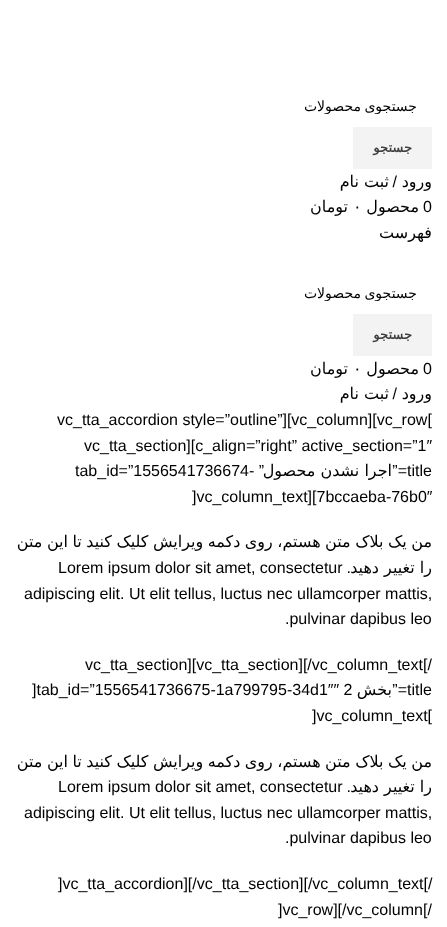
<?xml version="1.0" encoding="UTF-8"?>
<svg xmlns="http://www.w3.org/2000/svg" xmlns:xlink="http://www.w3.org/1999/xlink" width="447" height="927">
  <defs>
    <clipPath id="clip1"><rect x="30" y="98" width="387" height="16" /></clipPath>
    <clipPath id="clip2"><rect x="30" y="285" width="387" height="16" /></clipPath>
  </defs>
  <rect width="100%" height="100%" fill="#ffffff" />
  <rect x="353" y="127" width="79" height="42" fill="#f3f3f3" />
  <rect x="353" y="314" width="79" height="42" fill="#f3f3f3" />
  <g clip-path="url(#clip1)">
    <text x="417" y="111" word-spacing="-1" style="font-family: DejaVu Sans; font-size: 14px; direction: rtl; fill: #000000">جستجوی محصولات</text>
  </g>
  <text x="412" y="152" style="font-family: DejaVu Sans; font-size: 13px; font-weight: bold; direction: rtl; fill: #3e3e3e">جستجو</text>
  <text x="389" y="187" style="font-family: DejaVu Sans; font-size: 16px; direction: rtl; fill: #000000">ثبت نام</text>
  <text x="397" y="187" style="font-family: Liberation Sans; font-size: 16px; direction: rtl; fill: #000000">/</text>
  <text x="432" y="187" style="font-family: DejaVu Sans; font-size: 16px; direction: rtl; fill: #000000">ورود</text>
  <text x="348" y="212" style="font-family: DejaVu Sans; font-size: 16px; direction: rtl; fill: #000000">تومان</text>
  <text x="353" y="212" style="font-family: DejaVu Sans; font-size: 16px; fill: #000000">۰</text>
  <text x="419" y="212" style="font-family: DejaVu Sans; font-size: 16px; direction: rtl; fill: #000000">محصول</text>
  <text x="423" y="212" style="font-family: Liberation Sans; font-size: 16px; fill: #000000">0</text>
  <text x="432" y="238" style="font-family: DejaVu Sans; font-size: 16px; direction: rtl; fill: #000000">فهرست</text>
  <g clip-path="url(#clip2)">
    <text x="417" y="298" word-spacing="-1" style="font-family: DejaVu Sans; font-size: 14px; direction: rtl; fill: #000000">جستجوی محصولات</text>
  </g>
  <text x="412" y="339" style="font-family: DejaVu Sans; font-size: 13px; font-weight: bold; direction: rtl; fill: #3e3e3e">جستجو</text>
  <text x="348" y="374" style="font-family: DejaVu Sans; font-size: 16px; direction: rtl; fill: #000000">تومان</text>
  <text x="353" y="374" style="font-family: DejaVu Sans; font-size: 16px; fill: #000000">۰</text>
  <text x="419" y="374" style="font-family: DejaVu Sans; font-size: 16px; direction: rtl; fill: #000000">محصول</text>
  <text x="423" y="374" style="font-family: Liberation Sans; font-size: 16px; fill: #000000">0</text>
  <text x="389" y="399" style="font-family: DejaVu Sans; font-size: 16px; direction: rtl; fill: #000000">ثبت نام</text>
  <text x="397" y="399" style="font-family: Liberation Sans; font-size: 16px; direction: rtl; fill: #000000">/</text>
  <text x="432" y="399" style="font-family: DejaVu Sans; font-size: 16px; direction: rtl; fill: #000000">ورود</text>
  <text x="57" y="425" style="font-family: Liberation Sans; font-size: 16px; fill: #000000">vc_tta_accordion style=”outline”][vc_column][vc_row[</text>
  <text x="84" y="451" style="font-family: Liberation Sans; font-size: 16px; fill: #000000">vc_tta_section][c_align=”right” active_section=”1″</text>
  <text x="75" y="476" style="font-family: Liberation Sans; font-size: 16px; fill: #000000">tab_id=”1556541736674-</text>
  <text x="264" y="476" style="font-family: Liberation Sans; font-size: 16px; direction: rtl; fill: #000000">”</text>
  <text x="392" y="476" style="font-family: DejaVu Sans; font-size: 16px; direction: rtl; fill: #000000">اجرا نشدن محصول</text>
  <text x="407" y="476" style="font-family: Liberation Sans; font-size: 16px; direction: rtl; fill: #000000">=”</text>
  <text x="407" y="476" style="font-family: Liberation Sans; font-size: 16px; fill: #000000">title</text>
  <text x="192" y="502" style="font-family: Liberation Sans; font-size: 16px; fill: #000000">]vc_column_text][7bccaeba-76b0″</text>
  <text x="432" y="547" word-spacing="-0.6" style="font-family: DejaVu Sans; font-size: 16px; direction: rtl; fill: #000000">من یک بلاک متن هستم، روی دکمه ویرایش کلیک کنید تا این متن</text>
  <text x="58" y="573" style="font-family: Liberation Sans; font-size: 16px; fill: #000000">Lorem ipsum dolor sit amet, consectetur</text>
  <text x="351" y="573" style="font-family: Liberation Sans; font-size: 16px; direction: rtl; fill: #000000">.</text>
  <text x="432" y="573" style="font-family: DejaVu Sans; font-size: 16px; direction: rtl; fill: #000000">را تغییر دهید</text>
  <text x="24" y="599" style="font-family: Liberation Sans; font-size: 16px; fill: #000000">adipiscing elit. Ut elit tellus, luctus nec ullamcorper mattis,</text>
  <text x="285" y="624" style="font-family: Liberation Sans; font-size: 16px; fill: #000000">.pulvinar dapibus leo</text>
  <text x="85" y="670" style="font-family: Liberation Sans; font-size: 16px; fill: #000000">vc_tta_section][vc_tta_section][/vc_column_text[/</text>
  <text x="32" y="695" style="font-family: Liberation Sans; font-size: 16px; fill: #000000">]tab_id=”1556541736675-1a799795-34d1″″ 2</text>
  <text x="392" y="695" style="font-family: DejaVu Sans; font-size: 16px; direction: rtl; fill: #000000">بخش</text>
  <text x="407" y="695" style="font-family: Liberation Sans; font-size: 16px; direction: rtl; fill: #000000">=”</text>
  <text x="407" y="695" style="font-family: Liberation Sans; font-size: 16px; fill: #000000">title</text>
  <text x="312" y="721" style="font-family: Liberation Sans; font-size: 16px; fill: #000000">]vc_column_text[</text>
  <text x="432" y="767" word-spacing="-0.6" style="font-family: DejaVu Sans; font-size: 16px; direction: rtl; fill: #000000">من یک بلاک متن هستم، روی دکمه ویرایش کلیک کنید تا این متن</text>
  <text x="58" y="792" style="font-family: Liberation Sans; font-size: 16px; fill: #000000">Lorem ipsum dolor sit amet, consectetur</text>
  <text x="351" y="792" style="font-family: Liberation Sans; font-size: 16px; direction: rtl; fill: #000000">.</text>
  <text x="432" y="792" style="font-family: DejaVu Sans; font-size: 16px; direction: rtl; fill: #000000">را تغییر دهید</text>
  <text x="24" y="818" style="font-family: Liberation Sans; font-size: 16px; fill: #000000">adipiscing elit. Ut elit tellus, luctus nec ullamcorper mattis,</text>
  <text x="285" y="843" style="font-family: Liberation Sans; font-size: 16px; fill: #000000">.pulvinar dapibus leo</text>
  <text x="58" y="889" style="font-family: Liberation Sans; font-size: 16px; fill: #000000">]vc_tta_accordion][/vc_tta_section][/vc_column_text[/</text>
  <text x="278" y="915" style="font-family: Liberation Sans; font-size: 16px; fill: #000000">]vc_row][/vc_column[/</text>
</svg>
